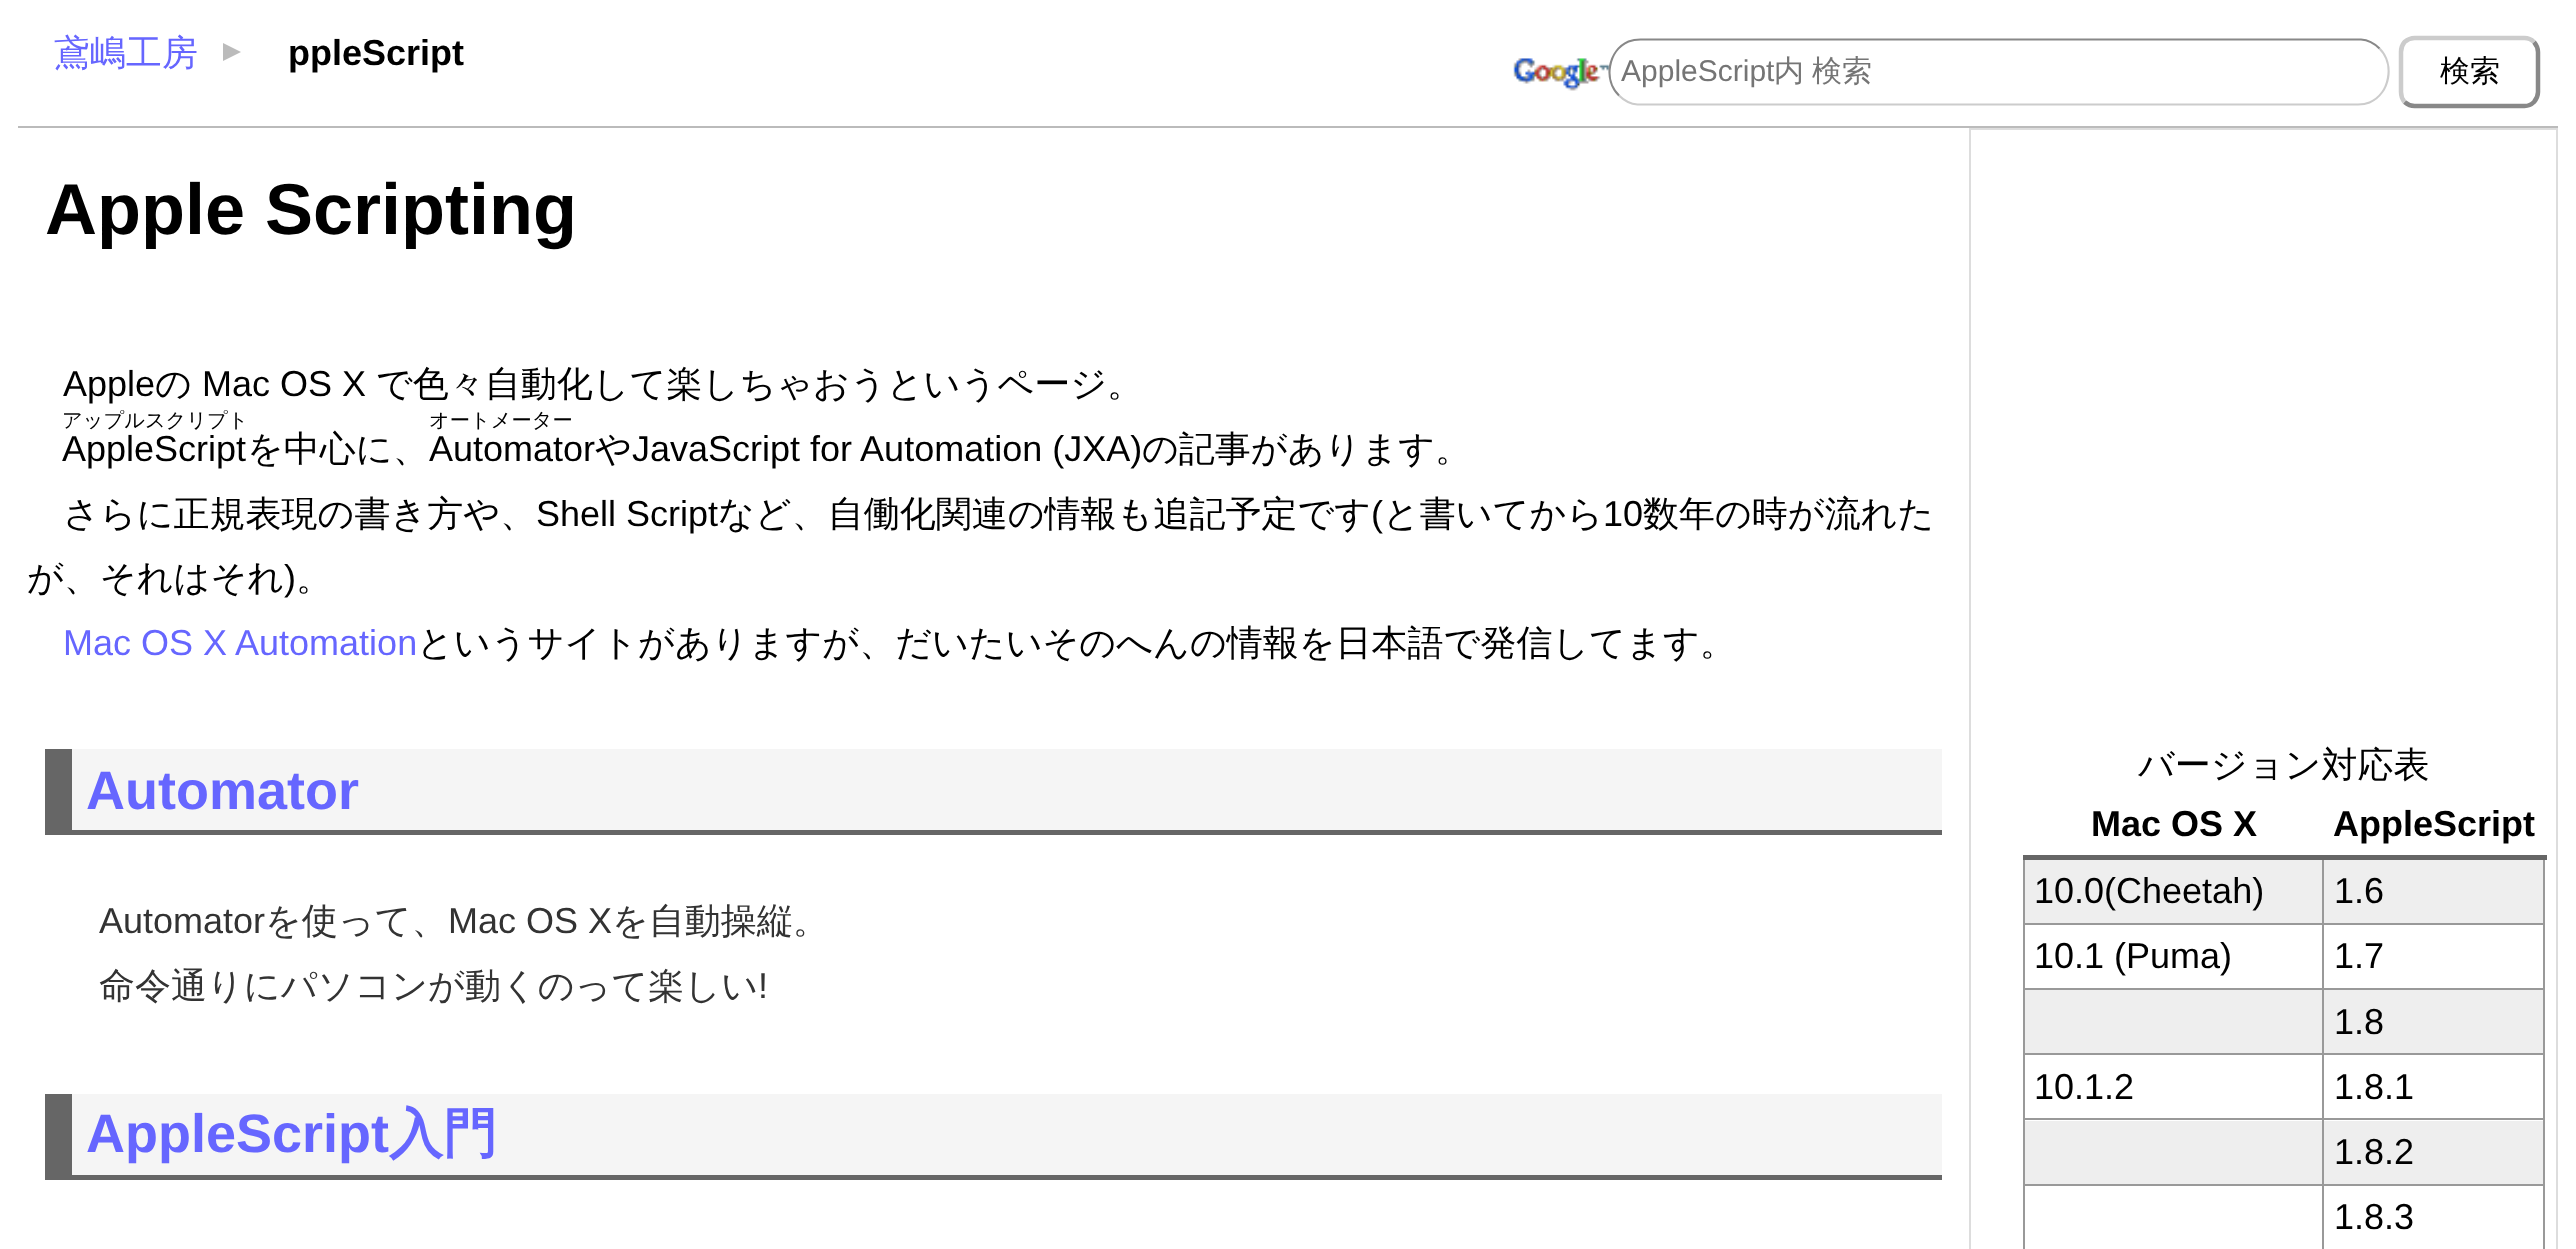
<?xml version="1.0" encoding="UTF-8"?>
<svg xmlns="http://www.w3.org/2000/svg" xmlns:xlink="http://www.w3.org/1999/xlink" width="2576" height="1249">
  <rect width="100%" height="100%" fill="#ffffff" />
  <rect x="18" y="126" width="2540" height="2" fill="#bbbbbb" />
  <path d="M 223 61 v -18 l 18 9 z" fill="#bbbbbb" />
  <image x="1513" y="58" width="96" height="33" xlink:href="image1.png" />
  <path d="M 2379.5 48.5 c 15.5 15.5 10.5 45 -10 54 c -3.5 1.5 -7.5 2 -11.5 2 h -720.5 c -7 -0.5 -13.5 -4 -18.5 -9" fill="none" stroke="#cccccc" stroke-width="2.2" />
  <path d="M 1619 95.5 c -16 -15.5 -11 -45 9.5 -54 c 4 -1.5 8 -2 12 -2 h 720.5 c 7 0.5 13.5 4 18.5 9" fill="none" stroke="#888888" stroke-width="2.2" />
  <path d="M 2534 42 c 2.5 3 4 6 4 10 v 40 c 0 4 -1.5 7 -4 10 c -2.5 2.5 -6 4 -9.5 4 h -110 c -4 0 -7 -1.5 -10 -4" fill="none" stroke="#888888" stroke-width="4.5" />
  <path d="M 2404.5 102 c -2.5 -3 -3.5 -6 -3.5 -10 v -40 c 0 -4 1 -7 3.5 -10 c 3 -2.5 6 -4 10 -4 h 110 c 3.5 0 7 1.5 9.5 4" fill="none" stroke="#cccccc" stroke-width="4.5" />
  <rect x="72" y="749" width="1870" height="81" fill="#f5f5f5" />
  <rect x="72" y="830" width="1870" height="5" fill="#666666" />
  <rect x="45" y="749" width="27" height="86" fill="#666666" />
  <rect x="72" y="1094" width="1870" height="81" fill="#f5f5f5" />
  <rect x="45" y="1175" width="1897" height="5" fill="#666666" />
  <rect x="45" y="1094" width="27" height="81" fill="#666666" />
  <rect x="1970" y="129" width="587" height="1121" fill="none" stroke="#dddddd" stroke-width="2" />
  <rect x="2025" y="860" width="518" height="63" fill="#eeeeee" />
  <rect x="2322" y="923" width="223" height="2" fill="#999999" />
  <rect x="2322" y="988" width="223" height="2" fill="#999999" />
  <rect x="2025" y="990" width="518" height="63" fill="#eeeeee" />
  <rect x="2322" y="1053" width="223" height="2" fill="#999999" />
  <rect x="2322" y="1118" width="223" height="2" fill="#999999" />
  <rect x="2025" y="1121" width="518" height="63" fill="#eeeeee" />
  <rect x="2322" y="1184" width="223" height="2" fill="#999999" />
  <rect x="2322" y="1184" width="2" height="65" fill="#999999" />
  <rect x="2023" y="1184" width="301" height="2" fill="#999999" />
  <rect x="2322" y="1118" width="2" height="68" fill="#999999" />
  <rect x="2023" y="1118" width="301" height="2" fill="#999999" />
  <rect x="2322" y="1053" width="2" height="68" fill="#999999" />
  <rect x="2023" y="1053" width="301" height="2" fill="#999999" />
  <rect x="2322" y="988" width="2" height="67" fill="#999999" />
  <rect x="2023" y="988" width="301" height="2" fill="#999999" />
  <rect x="2322" y="923" width="2" height="67" fill="#999999" />
  <rect x="2023" y="923" width="301" height="2" fill="#999999" />
  <rect x="2322" y="857" width="2" height="68" fill="#999999" />
  <rect x="2023" y="1184" width="2" height="65" fill="#999999" />
  <rect x="2023" y="1118" width="2" height="68" fill="#999999" />
  <rect x="2023" y="1053" width="2" height="68" fill="#999999" />
  <rect x="2023" y="988" width="2" height="67" fill="#999999" />
  <rect x="2023" y="857" width="2" height="133" fill="#999999" />
  <rect x="2543" y="1184" width="2" height="65" fill="#999999" />
  <rect x="2543" y="1118" width="2" height="68" fill="#999999" />
  <rect x="2543" y="1053" width="2" height="68" fill="#999999" />
  <rect x="2543" y="988" width="2" height="67" fill="#999999" />
  <rect x="2543" y="857" width="2" height="133" fill="#999999" />
  <rect x="2023" y="855" width="524" height="5" fill="#666666" />
  <text x="54" y="65" style="font-family: WenQuanYi Zen Hei; font-size: 36px; font-weight: 500; fill: #6666ff">鳶嶋工房</text>
  <text x="288" y="65" style="font-family: Liberation Sans; font-size: 36px; font-weight: bold; fill: #000000">ppleScript</text>
  <text x="1621" y="81" style="font-family: Liberation Sans; font-size: 30px; fill: #757575">AppleScript</text>
  <text x="1774" y="81" word-spacing="-1" style="font-family: WenQuanYi Zen Hei; font-size: 30px; font-weight: 500; fill: #757575">内 検索</text>
  <text x="2440" y="81" style="font-family: WenQuanYi Zen Hei; font-size: 30px; font-weight: 500; fill: #000000">検索</text>
  <text x="45" y="234" style="font-family: Liberation Sans; font-size: 72px; font-weight: bold; fill: #000000">Apple Scripting</text>
  <text x="63" y="396" style="font-family: Liberation Sans; font-size: 36px; fill: #000000">Apple</text>
  <text x="155" y="396" style="font-family: WenQuanYi Zen Hei; font-size: 36px; font-weight: 500; fill: #000000">の</text>
  <text x="202" y="396" style="font-family: Liberation Sans; font-size: 36px; fill: #000000">Mac OS X</text>
  <text x="376" y="396" style="font-family: WenQuanYi Zen Hei; font-size: 36px; font-weight: 500; fill: #000000">で色々自動化して楽しちゃおうというページ。</text>
  <text x="62" y="427" style="font-family: WenQuanYi Zen Hei; font-size: 20.25px; font-weight: 500; fill: #000000">アップルスクリプト</text>
  <text x="62" y="461" style="font-family: Liberation Sans; font-size: 36px; fill: #000000">AppleScript</text>
  <text x="247" y="461" style="font-family: WenQuanYi Zen Hei; font-size: 36px; font-weight: 500; fill: #000000">を中心に、</text>
  <text x="429" y="427" style="font-family: WenQuanYi Zen Hei; font-size: 20.25px; font-weight: 500; fill: #000000">オートメーター</text>
  <text x="429" y="461" style="font-family: Liberation Sans; font-size: 36px; fill: #000000">Automator</text>
  <text x="595" y="461" style="font-family: WenQuanYi Zen Hei; font-size: 36px; font-weight: 500; fill: #000000">や</text>
  <text x="632" y="461" style="font-family: Liberation Sans; font-size: 36px; fill: #000000">JavaScript for Automation (JXA)</text>
  <text x="1142" y="461" style="font-family: WenQuanYi Zen Hei; font-size: 36px; font-weight: 500; fill: #000000">の記事があります。</text>
  <text x="63" y="526" style="font-family: WenQuanYi Zen Hei; font-size: 36px; font-weight: 500; fill: #000000">さらに正規表現の書き方や、</text>
  <text x="536" y="526" style="font-family: Liberation Sans; font-size: 36px; fill: #000000">Shell Script</text>
  <text x="718" y="526" style="font-family: WenQuanYi Zen Hei; font-size: 36px; font-weight: 500; fill: #000000">など、自働化関連の情報も追記予定です</text>
  <text x="1371" y="526" style="font-family: Liberation Sans; font-size: 36px; fill: #000000">(</text>
  <text x="1383" y="526" style="font-family: WenQuanYi Zen Hei; font-size: 36px; font-weight: 500; fill: #000000">と書いてから</text>
  <text x="1603" y="526" style="font-family: Liberation Sans; font-size: 36px; fill: #000000">10</text>
  <text x="1643" y="526" style="font-family: WenQuanYi Zen Hei; font-size: 36px; font-weight: 500; fill: #000000">数年の時が流れた</text>
  <text x="27" y="590" style="font-family: WenQuanYi Zen Hei; font-size: 36px; font-weight: 500; fill: #000000">が、それはそれ</text>
  <text x="284" y="590" style="font-family: Liberation Sans; font-size: 36px; fill: #000000">)</text>
  <text x="296" y="590" style="font-family: WenQuanYi Zen Hei; font-size: 36px; font-weight: 500; fill: #000000">。</text>
  <text x="63" y="655" style="font-family: Liberation Sans; font-size: 36px; fill: #6666ff">Mac OS X Automation</text>
  <text x="417" y="655" style="font-family: WenQuanYi Zen Hei; font-size: 36px; font-weight: 500; fill: #000000">というサイトがありますが、だいたいそのへんの情報を日本語で発信してます。</text>
  <text x="86" y="809" style="font-family: Liberation Sans; font-size: 54px; font-weight: bold; fill: #6666ff">Automator</text>
  <text x="99" y="933" style="font-family: Liberation Sans; font-size: 36px; fill: #333333">Automator</text>
  <text x="265" y="933" style="font-family: WenQuanYi Zen Hei; font-size: 36px; font-weight: 500; fill: #333333">を使って、</text>
  <text x="448" y="933" style="font-family: Liberation Sans; font-size: 36px; fill: #333333">Mac OS X</text>
  <text x="612" y="933" style="font-family: WenQuanYi Zen Hei; font-size: 36px; font-weight: 500; fill: #333333">を自動操縦。</text>
  <text x="99" y="998" style="font-family: WenQuanYi Zen Hei; font-size: 36px; font-weight: 500; fill: #333333">命令通りにパソコンが動くのって楽しい</text>
  <text x="758" y="998" style="font-family: Liberation Sans; font-size: 36px; fill: #333333">!</text>
  <text x="86" y="1152" style="font-family: Liberation Sans; font-size: 54px; font-weight: bold; fill: #6666ff">AppleScript</text>
  <text x="389" y="1152" style="font-family: WenQuanYi Zen Hei; font-size: 54px; font-weight: bold; fill: #6666ff">入門</text>
  <text x="2138" y="777" style="font-family: WenQuanYi Zen Hei; font-size: 36px; font-weight: 500; fill: #000000">バージョン対応表</text>
  <text x="2091" y="836" style="font-family: Liberation Sans; font-size: 36px; font-weight: bold; fill: #000000">Mac OS X</text>
  <text x="2333" y="836" style="font-family: Liberation Sans; font-size: 36px; font-weight: bold; fill: #000000">AppleScript</text>
  <text x="2034" y="903" style="font-family: Liberation Sans; font-size: 36px; fill: #000000">10.0(Cheetah)</text>
  <text x="2334" y="903" style="font-family: Liberation Sans; font-size: 36px; fill: #000000">1.6</text>
  <text x="2034" y="968" style="font-family: Liberation Sans; font-size: 36px; fill: #000000">10.1 (Puma)</text>
  <text x="2334" y="968" style="font-family: Liberation Sans; font-size: 36px; fill: #000000">1.7</text>
  <text x="2334" y="1034" style="font-family: Liberation Sans; font-size: 36px; fill: #000000">1.8</text>
  <text x="2034" y="1099" style="font-family: Liberation Sans; font-size: 36px; fill: #000000">10.1.2</text>
  <text x="2334" y="1099" style="font-family: Liberation Sans; font-size: 36px; fill: #000000">1.8.1</text>
  <text x="2334" y="1164" style="font-family: Liberation Sans; font-size: 36px; fill: #000000">1.8.2</text>
  <text x="2334" y="1229" style="font-family: Liberation Sans; font-size: 36px; fill: #000000">1.8.3</text>
</svg>
